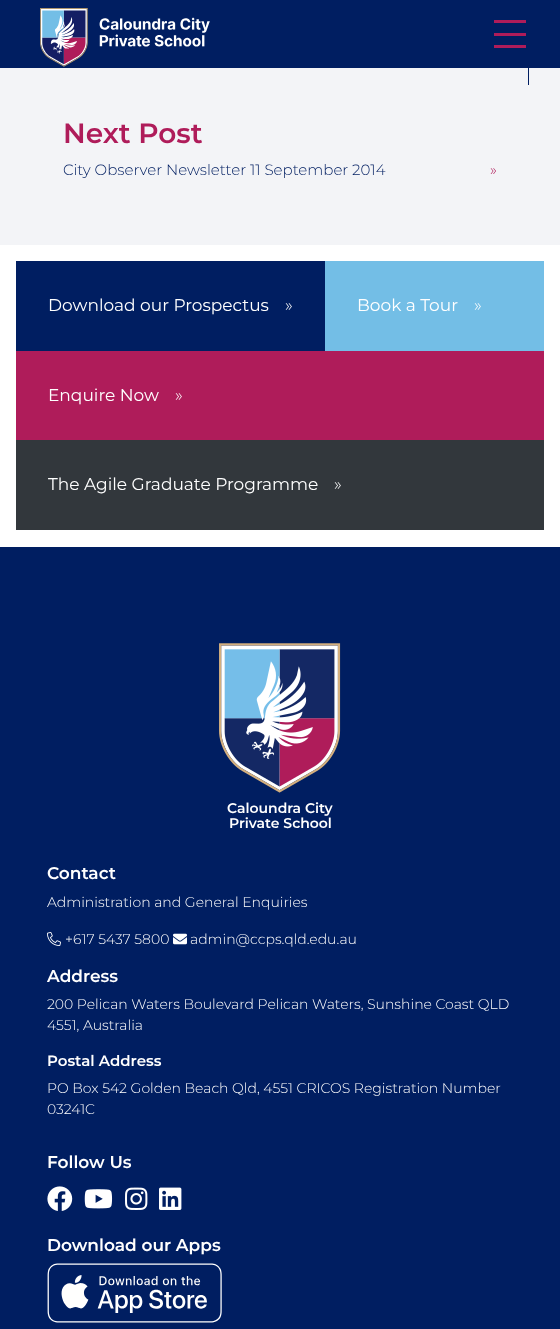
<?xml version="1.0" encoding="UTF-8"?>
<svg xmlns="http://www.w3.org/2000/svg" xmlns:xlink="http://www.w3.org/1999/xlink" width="560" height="1329">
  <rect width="100%" height="100%" fill="#ffffff" />
  <rect width="560" height="68" fill="#001e61" />
  <image x="40" y="8" width="170" height="59" xlink:href="image1.png" />
  <rect x="494" y="20" width="32" height="3" fill="#af1c5a" />
  <rect x="494" y="33" width="32" height="3" fill="#af1c5a" />
  <rect x="494" y="45" width="32" height="3" fill="#af1c5a" />
  <rect y="68" width="560" height="177" fill="#f3f4f7" />
  <rect x="528" y="68" width="1" height="17" fill="#001e61" />
  <rect x="16" y="261" width="309" height="90" fill="#001e61" />
  <rect x="325" y="261" width="219" height="90" fill="#73bee6" />
  <rect x="16" y="351" width="528" height="89" fill="#af1c5a" />
  <rect x="16" y="440" width="528" height="90" fill="#32373c" />
  <rect y="547" width="560" height="782" fill="#001e61" />
  <image x="219" y="643" width="122" height="150" xlink:href="image2.png" />
  <image x="47" y="932" width="14" height="14" xlink:href="image3.png" />
  <image x="173" y="933" width="14" height="12" xlink:href="image4.png" />
  <image x="47" y="1186" width="26" height="25" xlink:href="image5.png" />
  <image x="84" y="1189" width="29" height="20" xlink:href="image6.png" />
  <image x="125" y="1187" width="23" height="23" xlink:href="image7.png" />
  <image x="159" y="1187" width="23" height="23" xlink:href="image8.png" />
  <image x="47" y="1263" width="175" height="60" xlink:href="image9.png" />
  <text x="63" y="143" style="font-family: Montserrat; font-size: 28px; font-weight: 600; fill: #af1c5a">Next Post</text>
  <text x="63" y="175" style="font-family: Montserrat; font-size: 15px; font-weight: 300; fill: #001e61">City Observer Newsletter 11 September 2014</text>
  <text x="490" y="175" style="font-family: Montserrat; font-size: 15px; font-weight: 300; fill: #af1c5a">»</text>
  <text x="48" y="311" style="font-family: Montserrat; font-size: 17px; fill: #ffffff">Download our Prospectus</text>
  <text x="285" y="311" style="font-family: Montserrat; font-size: 17px; font-weight: 300; fill: #ffffff">»</text>
  <text x="357" y="311" style="font-family: Montserrat; font-size: 17px; fill: #ffffff">Book a Tour</text>
  <text x="474" y="311" style="font-family: Montserrat; font-size: 17px; font-weight: 300; fill: #ffffff">»</text>
  <text x="48" y="401" style="font-family: Montserrat; font-size: 17px; fill: #ffffff">Enquire Now</text>
  <text x="175" y="401" style="font-family: Montserrat; font-size: 17px; font-weight: 300; fill: #ffffff">»</text>
  <text x="48" y="490" style="font-family: Montserrat; font-size: 17px; fill: #ffffff">The Agile Graduate Programme</text>
  <text x="334" y="490" style="font-family: Montserrat; font-size: 17px; font-weight: 300; fill: #ffffff">»</text>
  <text x="227" y="813" style="font-family: Montserrat; font-size: 14px; font-weight: 600; fill: #ffffff">Caloundra City</text>
  <text x="229" y="828" style="font-family: Montserrat; font-size: 14px; font-weight: 600; fill: #ffffff">Private School</text>
  <text x="47" y="879" style="font-family: Montserrat; font-size: 17px; font-weight: 600; fill: #ffffff">Contact</text>
  <text x="47" y="907" style="font-family: Montserrat; font-size: 14px; font-weight: 300; fill: #ffffff">Administration and General Enquiries</text>
  <text x="65" y="944" style="font-family: Montserrat; font-size: 14px; font-weight: 300; fill: #ffffff">+617 5437 5800</text>
  <text x="190" y="944" style="font-family: Montserrat; font-size: 14px; font-weight: 300; fill: #ffffff">admin@ccps.qld.edu.au</text>
  <text x="47" y="982" style="font-family: Montserrat; font-size: 17px; font-weight: 600; fill: #ffffff">Address</text>
  <text x="47" y="1009" style="font-family: Montserrat; font-size: 14px; font-weight: 300; fill: #ffffff">200 Pelican Waters Boulevard Pelican Waters, Sunshine Coast QLD</text>
  <text x="47" y="1030" style="font-family: Montserrat; font-size: 14px; font-weight: 300; fill: #ffffff">4551, Australia</text>
  <text x="47" y="1066" style="font-family: Montserrat; font-size: 15px; font-weight: 600; fill: #ffffff">Postal Address</text>
  <text x="47" y="1093" style="font-family: Montserrat; font-size: 14px; font-weight: 300; fill: #ffffff">PO Box 542 Golden Beach Qld, 4551 CRICOS Registration Number</text>
  <text x="47" y="1114" style="font-family: Montserrat; font-size: 14px; font-weight: 300; fill: #ffffff">03241C</text>
  <text x="47" y="1168" style="font-family: Montserrat; font-size: 17px; font-weight: 600; fill: #ffffff">Follow Us</text>
  <text x="47" y="1251" style="font-family: Montserrat; font-size: 17px; font-weight: 600; fill: #ffffff">Download our Apps</text>
</svg>
